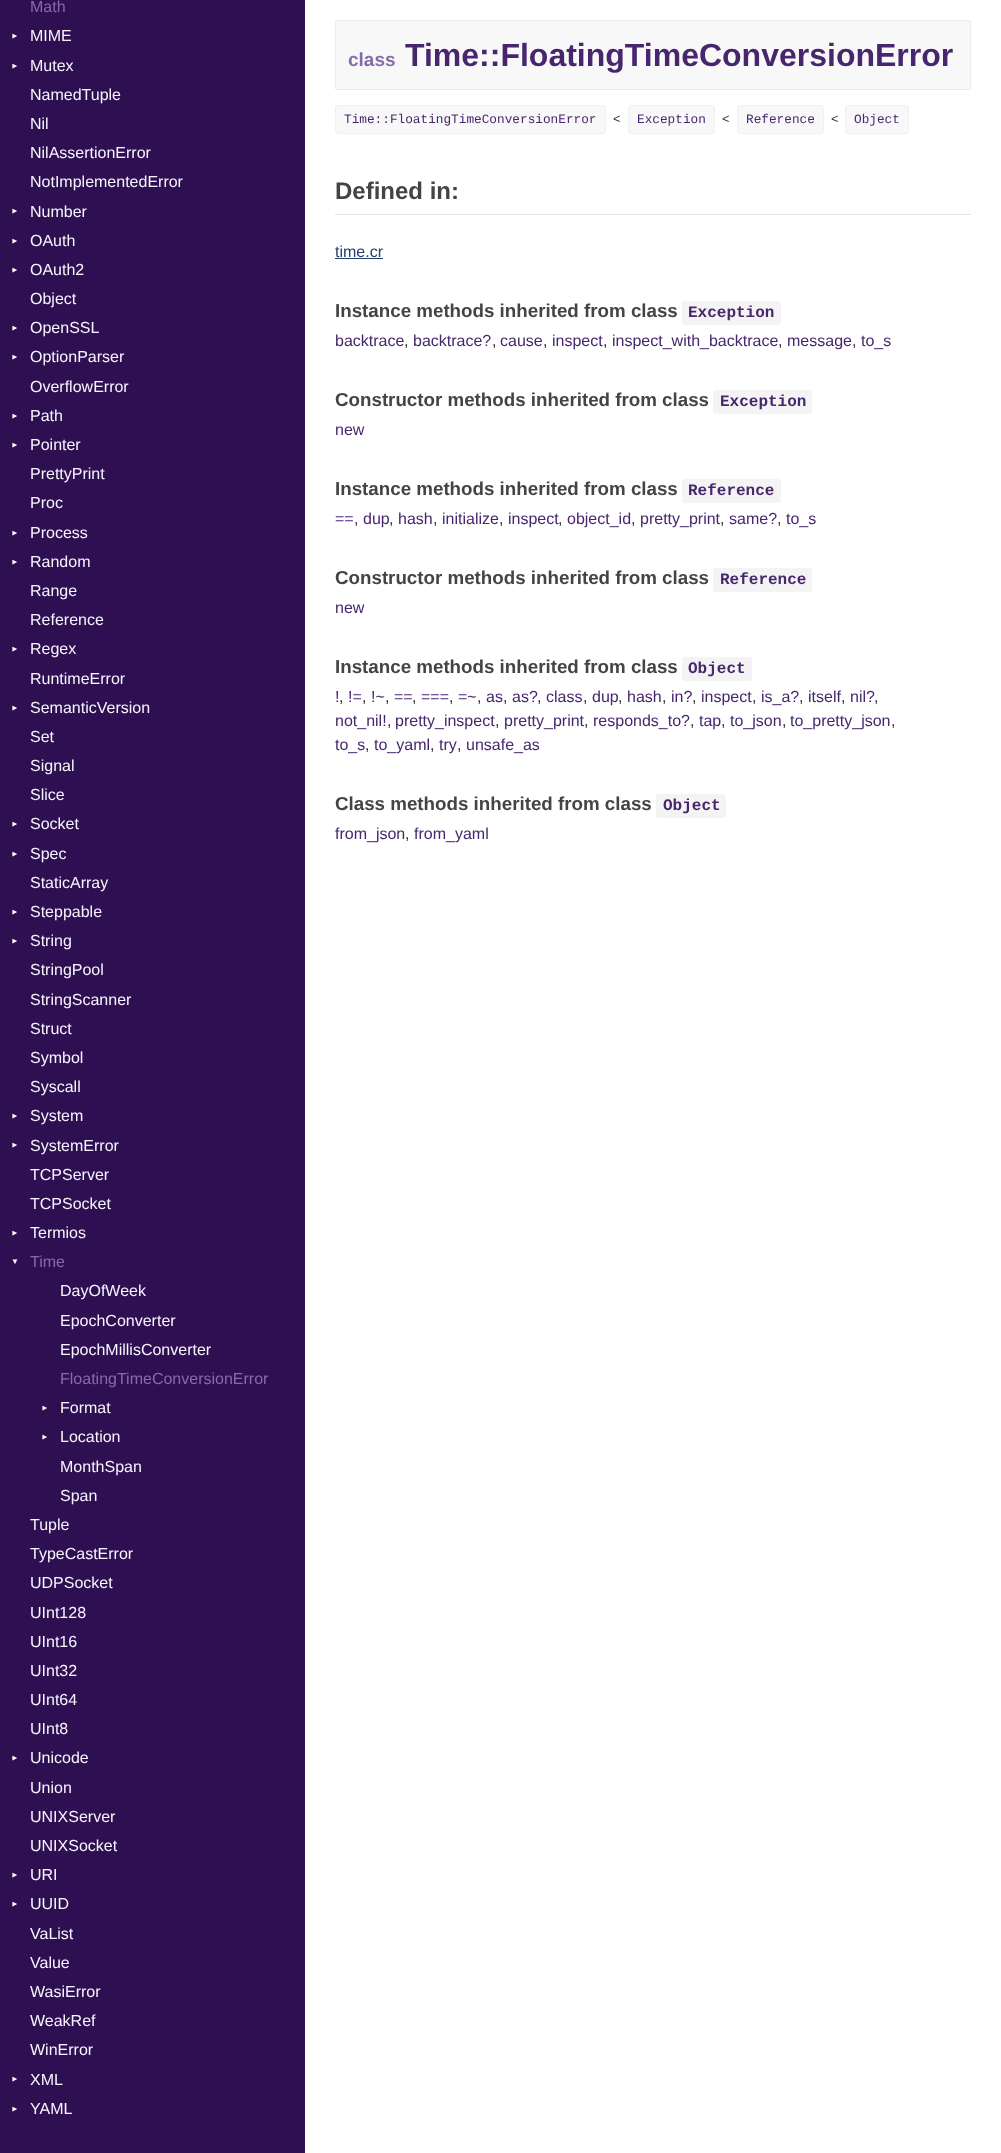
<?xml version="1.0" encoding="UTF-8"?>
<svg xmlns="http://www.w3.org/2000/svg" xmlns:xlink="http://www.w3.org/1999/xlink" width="1001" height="2153">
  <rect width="100%" height="100%" fill="#ffffff" />
  <rect width="305" height="2153" fill="#2e1052" />
  <rect x="335.5" y="20.5" width="635" height="69" rx="1.5" fill="#f8f8f8" stroke="#ebebeb" />
  <rect x="335.5" y="105.5" width="270" height="28" rx="2.5" fill="#f8f8f8" stroke="#f0f0f0" />
  <rect x="628.5" y="105.5" width="86" height="28" rx="2.5" fill="#f8f8f8" stroke="#f0f0f0" />
  <rect x="737.5" y="105.5" width="86" height="28" rx="2.5" fill="#f8f8f8" stroke="#f0f0f0" />
  <rect x="845.5" y="105.5" width="63" height="28" rx="2.5" fill="#f8f8f8" stroke="#f0f0f0" />
  <rect x="335" y="214" width="636" height="1" fill="#e6e6e6" />
  <rect x="335" y="258" width="48" height="1" fill="#263f6c" />
  <rect x="682" y="301" width="99" height="24" rx="3" fill="#f4f4f4" />
  <rect x="713" y="390" width="99" height="24" rx="3" fill="#f4f4f4" />
  <rect x="682" y="479" width="99" height="24" rx="3" fill="#f4f4f4" />
  <rect x="713" y="568" width="99" height="24" rx="3" fill="#f4f4f4" />
  <rect x="682" y="657" width="70" height="24" rx="3" fill="#f4f4f4" />
  <rect x="656" y="794" width="70" height="24" rx="3" fill="#f4f4f4" />
  <text x="30" y="12" style="font-family: Liberation Sans; font-size: 16px; fill: #866ba6">Math</text>
  <text x="17" y="40" transform="rotate(-90 17 40)" style="font-family: Liberation Sans; font-size: 8px; fill: #ffffff">▼</text>
  <text x="30" y="41" style="font-family: Liberation Sans; font-size: 16px; fill: #f8f4fd">MIME</text>
  <text x="17" y="70" transform="rotate(-90 17 70)" style="font-family: Liberation Sans; font-size: 8px; fill: #ffffff">▼</text>
  <text x="30" y="71" style="font-family: Liberation Sans; font-size: 16px; fill: #f8f4fd">Mutex</text>
  <text x="30" y="100" style="font-family: Liberation Sans; font-size: 16px; fill: #f8f4fd">NamedTuple</text>
  <text x="30" y="129" style="font-family: Liberation Sans; font-size: 16px; fill: #f8f4fd">Nil</text>
  <text x="30" y="158" style="font-family: Liberation Sans; font-size: 16px; fill: #f8f4fd">NilAssertionError</text>
  <text x="30" y="187" style="font-family: Liberation Sans; font-size: 16px; fill: #f8f4fd">NotImplementedError</text>
  <text x="17" y="215" transform="rotate(-90 17 215)" style="font-family: Liberation Sans; font-size: 8px; fill: #ffffff">▼</text>
  <text x="30" y="217" style="font-family: Liberation Sans; font-size: 16px; fill: #f8f4fd">Number</text>
  <text x="17" y="245" transform="rotate(-90 17 245)" style="font-family: Liberation Sans; font-size: 8px; fill: #ffffff">▼</text>
  <text x="30" y="246" style="font-family: Liberation Sans; font-size: 16px; fill: #f8f4fd">OAuth</text>
  <text x="17" y="274" transform="rotate(-90 17 274)" style="font-family: Liberation Sans; font-size: 8px; fill: #ffffff">▼</text>
  <text x="30" y="275" style="font-family: Liberation Sans; font-size: 16px; fill: #f8f4fd">OAuth2</text>
  <text x="30" y="304" style="font-family: Liberation Sans; font-size: 16px; fill: #f8f4fd">Object</text>
  <text x="17" y="332" transform="rotate(-90 17 332)" style="font-family: Liberation Sans; font-size: 8px; fill: #ffffff">▼</text>
  <text x="30" y="333" style="font-family: Liberation Sans; font-size: 16px; fill: #f8f4fd">OpenSSL</text>
  <text x="17" y="361" transform="rotate(-90 17 361)" style="font-family: Liberation Sans; font-size: 8px; fill: #ffffff">▼</text>
  <text x="30" y="362" style="font-family: Liberation Sans; font-size: 16px; fill: #f8f4fd">OptionParser</text>
  <text x="30" y="392" style="font-family: Liberation Sans; font-size: 16px; fill: #f8f4fd">OverflowError</text>
  <text x="17" y="420" transform="rotate(-90 17 420)" style="font-family: Liberation Sans; font-size: 8px; fill: #ffffff">▼</text>
  <text x="30" y="421" style="font-family: Liberation Sans; font-size: 16px; fill: #f8f4fd">Path</text>
  <text x="17" y="449" transform="rotate(-90 17 449)" style="font-family: Liberation Sans; font-size: 8px; fill: #ffffff">▼</text>
  <text x="30" y="450" style="font-family: Liberation Sans; font-size: 16px; fill: #f8f4fd">Pointer</text>
  <text x="30" y="479" style="font-family: Liberation Sans; font-size: 16px; fill: #f8f4fd">PrettyPrint</text>
  <text x="30" y="508" style="font-family: Liberation Sans; font-size: 16px; fill: #f8f4fd">Proc</text>
  <text x="17" y="537" transform="rotate(-90 17 537)" style="font-family: Liberation Sans; font-size: 8px; fill: #ffffff">▼</text>
  <text x="30" y="538" style="font-family: Liberation Sans; font-size: 16px; fill: #f8f4fd">Process</text>
  <text x="17" y="566" transform="rotate(-90 17 566)" style="font-family: Liberation Sans; font-size: 8px; fill: #ffffff">▼</text>
  <text x="30" y="567" style="font-family: Liberation Sans; font-size: 16px; fill: #f8f4fd">Random</text>
  <text x="30" y="596" style="font-family: Liberation Sans; font-size: 16px; fill: #f8f4fd">Range</text>
  <text x="30" y="625" style="font-family: Liberation Sans; font-size: 16px; fill: #f8f4fd">Reference</text>
  <text x="17" y="653" transform="rotate(-90 17 653)" style="font-family: Liberation Sans; font-size: 8px; fill: #ffffff">▼</text>
  <text x="30" y="654" style="font-family: Liberation Sans; font-size: 16px; fill: #f8f4fd">Regex</text>
  <text x="30" y="684" style="font-family: Liberation Sans; font-size: 16px; fill: #f8f4fd">RuntimeError</text>
  <text x="17" y="712" transform="rotate(-90 17 712)" style="font-family: Liberation Sans; font-size: 8px; fill: #ffffff">▼</text>
  <text x="30" y="713" style="font-family: Liberation Sans; font-size: 16px; fill: #f8f4fd">SemanticVersion</text>
  <text x="30" y="742" style="font-family: Liberation Sans; font-size: 16px; fill: #f8f4fd">Set</text>
  <text x="30" y="771" style="font-family: Liberation Sans; font-size: 16px; fill: #f8f4fd">Signal</text>
  <text x="30" y="800" style="font-family: Liberation Sans; font-size: 16px; fill: #f8f4fd">Slice</text>
  <text x="17" y="828" transform="rotate(-90 17 828)" style="font-family: Liberation Sans; font-size: 8px; fill: #ffffff">▼</text>
  <text x="30" y="829" style="font-family: Liberation Sans; font-size: 16px; fill: #f8f4fd">Socket</text>
  <text x="17" y="858" transform="rotate(-90 17 858)" style="font-family: Liberation Sans; font-size: 8px; fill: #ffffff">▼</text>
  <text x="30" y="859" style="font-family: Liberation Sans; font-size: 16px; fill: #f8f4fd">Spec</text>
  <text x="30" y="888" style="font-family: Liberation Sans; font-size: 16px; fill: #f8f4fd">StaticArray</text>
  <text x="17" y="916" transform="rotate(-90 17 916)" style="font-family: Liberation Sans; font-size: 8px; fill: #ffffff">▼</text>
  <text x="30" y="917" style="font-family: Liberation Sans; font-size: 16px; fill: #f8f4fd">Steppable</text>
  <text x="17" y="945" transform="rotate(-90 17 945)" style="font-family: Liberation Sans; font-size: 8px; fill: #ffffff">▼</text>
  <text x="30" y="946" style="font-family: Liberation Sans; font-size: 16px; fill: #f8f4fd">String</text>
  <text x="30" y="975" style="font-family: Liberation Sans; font-size: 16px; fill: #f8f4fd">StringPool</text>
  <text x="30" y="1005" style="font-family: Liberation Sans; font-size: 16px; fill: #f8f4fd">StringScanner</text>
  <text x="30" y="1034" style="font-family: Liberation Sans; font-size: 16px; fill: #f8f4fd">Struct</text>
  <text x="30" y="1063" style="font-family: Liberation Sans; font-size: 16px; fill: #f8f4fd">Symbol</text>
  <text x="30" y="1092" style="font-family: Liberation Sans; font-size: 16px; fill: #f8f4fd">Syscall</text>
  <text x="17" y="1120" transform="rotate(-90 17 1120)" style="font-family: Liberation Sans; font-size: 8px; fill: #ffffff">▼</text>
  <text x="30" y="1121" style="font-family: Liberation Sans; font-size: 16px; fill: #f8f4fd">System</text>
  <text x="17" y="1149" transform="rotate(-90 17 1149)" style="font-family: Liberation Sans; font-size: 8px; fill: #ffffff">▼</text>
  <text x="30" y="1151" style="font-family: Liberation Sans; font-size: 16px; fill: #f8f4fd">SystemError</text>
  <text x="30" y="1180" style="font-family: Liberation Sans; font-size: 16px; fill: #f8f4fd">TCPServer</text>
  <text x="30" y="1209" style="font-family: Liberation Sans; font-size: 16px; fill: #f8f4fd">TCPSocket</text>
  <text x="17" y="1237" transform="rotate(-90 17 1237)" style="font-family: Liberation Sans; font-size: 8px; fill: #ffffff">▼</text>
  <text x="30" y="1238" style="font-family: Liberation Sans; font-size: 16px; fill: #f8f4fd">Termios</text>
  <text x="11" y="1264" style="font-family: Liberation Sans; font-size: 8px; fill: #ffffff">▼</text>
  <text x="30" y="1267" style="font-family: Liberation Sans; font-size: 16px; fill: #866ba6">Time</text>
  <text x="60" y="1296" style="font-family: Liberation Sans; font-size: 16px; fill: #f8f4fd">DayOfWeek</text>
  <text x="60" y="1326" style="font-family: Liberation Sans; font-size: 16px; fill: #f8f4fd">EpochConverter</text>
  <text x="60" y="1355" style="font-family: Liberation Sans; font-size: 16px; fill: #f8f4fd">EpochMillisConverter</text>
  <text x="60" y="1384" style="font-family: Liberation Sans; font-size: 16px; fill: #866ba6">FloatingTimeConversionError</text>
  <text x="47" y="1412" transform="rotate(-90 47 1412)" style="font-family: Liberation Sans; font-size: 8px; fill: #ffffff">▼</text>
  <text x="60" y="1413" style="font-family: Liberation Sans; font-size: 16px; fill: #f8f4fd">Format</text>
  <text x="47" y="1441" transform="rotate(-90 47 1441)" style="font-family: Liberation Sans; font-size: 8px; fill: #ffffff">▼</text>
  <text x="60" y="1442" style="font-family: Liberation Sans; font-size: 16px; fill: #f8f4fd">Location</text>
  <text x="60" y="1472" style="font-family: Liberation Sans; font-size: 16px; fill: #f8f4fd">MonthSpan</text>
  <text x="60" y="1501" style="font-family: Liberation Sans; font-size: 16px; fill: #f8f4fd">Span</text>
  <text x="30" y="1530" style="font-family: Liberation Sans; font-size: 16px; fill: #f8f4fd">Tuple</text>
  <text x="30" y="1559" style="font-family: Liberation Sans; font-size: 16px; fill: #f8f4fd">TypeCastError</text>
  <text x="30" y="1588" style="font-family: Liberation Sans; font-size: 16px; fill: #f8f4fd">UDPSocket</text>
  <text x="30" y="1618" style="font-family: Liberation Sans; font-size: 16px; fill: #f8f4fd">UInt128</text>
  <text x="30" y="1647" style="font-family: Liberation Sans; font-size: 16px; fill: #f8f4fd">UInt16</text>
  <text x="30" y="1676" style="font-family: Liberation Sans; font-size: 16px; fill: #f8f4fd">UInt32</text>
  <text x="30" y="1705" style="font-family: Liberation Sans; font-size: 16px; fill: #f8f4fd">UInt64</text>
  <text x="30" y="1734" style="font-family: Liberation Sans; font-size: 16px; fill: #f8f4fd">UInt8</text>
  <text x="17" y="1762" transform="rotate(-90 17 1762)" style="font-family: Liberation Sans; font-size: 8px; fill: #ffffff">▼</text>
  <text x="30" y="1763" style="font-family: Liberation Sans; font-size: 16px; fill: #f8f4fd">Unicode</text>
  <text x="30" y="1793" style="font-family: Liberation Sans; font-size: 16px; fill: #f8f4fd">Union</text>
  <text x="30" y="1822" style="font-family: Liberation Sans; font-size: 16px; fill: #f8f4fd">UNIXServer</text>
  <text x="30" y="1851" style="font-family: Liberation Sans; font-size: 16px; fill: #f8f4fd">UNIXSocket</text>
  <text x="17" y="1879" transform="rotate(-90 17 1879)" style="font-family: Liberation Sans; font-size: 8px; fill: #ffffff">▼</text>
  <text x="30" y="1880" style="font-family: Liberation Sans; font-size: 16px; fill: #f8f4fd">URI</text>
  <text x="17" y="1908" transform="rotate(-90 17 1908)" style="font-family: Liberation Sans; font-size: 8px; fill: #ffffff">▼</text>
  <text x="30" y="1909" style="font-family: Liberation Sans; font-size: 16px; fill: #f8f4fd">UUID</text>
  <text x="30" y="1939" style="font-family: Liberation Sans; font-size: 16px; fill: #f8f4fd">VaList</text>
  <text x="30" y="1968" style="font-family: Liberation Sans; font-size: 16px; fill: #f8f4fd">Value</text>
  <text x="30" y="1997" style="font-family: Liberation Sans; font-size: 16px; fill: #f8f4fd">WasiError</text>
  <text x="30" y="2026" style="font-family: Liberation Sans; font-size: 16px; fill: #f8f4fd">WeakRef</text>
  <text x="30" y="2055" style="font-family: Liberation Sans; font-size: 16px; fill: #f8f4fd">WinError</text>
  <text x="17" y="2083" transform="rotate(-90 17 2083)" style="font-family: Liberation Sans; font-size: 8px; fill: #ffffff">▼</text>
  <text x="30" y="2085" style="font-family: Liberation Sans; font-size: 16px; fill: #f8f4fd">XML</text>
  <text x="17" y="2113" transform="rotate(-90 17 2113)" style="font-family: Liberation Sans; font-size: 8px; fill: #ffffff">▼</text>
  <text x="30" y="2114" style="font-family: Liberation Sans; font-size: 16px; fill: #f8f4fd">YAML</text>
  <text x="348" y="66" style="font-family: Liberation Sans; font-size: 19px; font-weight: bold; fill: #866ba6">class</text>
  <text x="405" y="66" style="font-family: Liberation Sans; font-size: 32px; font-weight: bold; fill: #47266e">Time::FloatingTimeConversionError</text>
  <text x="344" y="123" style="font-family: Liberation Mono; font-size: 12.75px; fill: #47266e">Time::FloatingTimeConversionError</text>
  <text x="613" y="123" style="font-family: Liberation Sans; font-size: 12.75px; fill: #333333">&lt;</text>
  <text x="637" y="123" style="font-family: Liberation Mono; font-size: 12.75px; fill: #47266e">Exception</text>
  <text x="722" y="123" style="font-family: Liberation Sans; font-size: 12.75px; fill: #333333">&lt;</text>
  <text x="746" y="123" style="font-family: Liberation Mono; font-size: 12.75px; fill: #47266e">Reference</text>
  <text x="831" y="123" style="font-family: Liberation Sans; font-size: 12.75px; fill: #333333">&lt;</text>
  <text x="854" y="123" style="font-family: Liberation Mono; font-size: 12.75px; fill: #47266e">Object</text>
  <text x="335" y="199" style="font-family: Liberation Sans; font-size: 24px; font-weight: bold; fill: #444444">Defined in:</text>
  <text x="335" y="257" style="font-family: Liberation Sans; font-size: 16px; fill: #263f6c">time.cr</text>
  <text x="335" y="317" style="font-family: Liberation Sans; font-size: 18.75px; font-weight: bold; fill: #444444">Instance methods inherited from class</text>
  <text x="688" y="317" style="font-family: Liberation Mono; font-size: 16px; font-weight: bold; fill: #47266e">Exception</text>
  <text x="335" y="346" style="font-family: Liberation Sans; font-size: 16px; fill: #47266e">backtrace</text>
  <text x="404" y="346" style="font-family: Liberation Sans; font-size: 16px; fill: #333333">,</text>
  <text x="413" y="346" style="font-family: Liberation Sans; font-size: 16px; fill: #47266e">backtrace?</text>
  <text x="492" y="346" style="font-family: Liberation Sans; font-size: 16px; fill: #333333">,</text>
  <text x="500" y="346" style="font-family: Liberation Sans; font-size: 16px; fill: #47266e">cause</text>
  <text x="543" y="346" style="font-family: Liberation Sans; font-size: 16px; fill: #333333">,</text>
  <text x="552" y="346" style="font-family: Liberation Sans; font-size: 16px; fill: #47266e">inspect</text>
  <text x="603" y="346" style="font-family: Liberation Sans; font-size: 16px; fill: #333333">,</text>
  <text x="612" y="346" style="font-family: Liberation Sans; font-size: 16px; fill: #47266e">inspect_with_backtrace</text>
  <text x="778" y="346" style="font-family: Liberation Sans; font-size: 16px; fill: #333333">,</text>
  <text x="787" y="346" style="font-family: Liberation Sans; font-size: 16px; fill: #47266e">message</text>
  <text x="852" y="346" style="font-family: Liberation Sans; font-size: 16px; fill: #333333">,</text>
  <text x="861" y="346" style="font-family: Liberation Sans; font-size: 16px; fill: #47266e">to_s</text>
  <text x="335" y="406" style="font-family: Liberation Sans; font-size: 18.75px; font-weight: bold; fill: #444444">Constructor methods inherited from class</text>
  <text x="720" y="406" style="font-family: Liberation Mono; font-size: 16px; font-weight: bold; fill: #47266e">Exception</text>
  <text x="335" y="435" style="font-family: Liberation Sans; font-size: 16px; fill: #47266e">new</text>
  <text x="335" y="495" style="font-family: Liberation Sans; font-size: 18.75px; font-weight: bold; fill: #444444">Instance methods inherited from class</text>
  <text x="688" y="495" style="font-family: Liberation Mono; font-size: 16px; font-weight: bold; fill: #47266e">Reference</text>
  <text x="335" y="524" style="font-family: Liberation Sans; font-size: 16px; fill: #47266e">==</text>
  <text x="363" y="524" style="font-family: Liberation Sans; font-size: 16px; fill: #47266e">dup</text>
  <text x="398" y="524" style="font-family: Liberation Sans; font-size: 16px; fill: #47266e">hash</text>
  <text x="442" y="524" style="font-family: Liberation Sans; font-size: 16px; fill: #47266e">initialize</text>
  <text x="508" y="524" style="font-family: Liberation Sans; font-size: 16px; fill: #47266e">inspect</text>
  <text x="567" y="524" style="font-family: Liberation Sans; font-size: 16px; fill: #47266e">object_id</text>
  <text x="640" y="524" style="font-family: Liberation Sans; font-size: 16px; fill: #47266e">pretty_print</text>
  <text x="729" y="524" style="font-family: Liberation Sans; font-size: 16px; fill: #47266e">same?</text>
  <text x="786" y="524" style="font-family: Liberation Sans; font-size: 16px; fill: #47266e">to_s</text>
  <text x="354" y="524" style="font-family: Liberation Sans; font-size: 16px; fill: #333333">,</text>
  <text x="389" y="524" style="font-family: Liberation Sans; font-size: 16px; fill: #333333">,</text>
  <text x="433" y="524" style="font-family: Liberation Sans; font-size: 16px; fill: #333333">,</text>
  <text x="499" y="524" style="font-family: Liberation Sans; font-size: 16px; fill: #333333">,</text>
  <text x="558" y="524" style="font-family: Liberation Sans; font-size: 16px; fill: #333333">,</text>
  <text x="631" y="524" style="font-family: Liberation Sans; font-size: 16px; fill: #333333">,</text>
  <text x="720" y="524" style="font-family: Liberation Sans; font-size: 16px; fill: #333333">,</text>
  <text x="777" y="524" style="font-family: Liberation Sans; font-size: 16px; fill: #333333">,</text>
  <text x="335" y="584" style="font-family: Liberation Sans; font-size: 18.75px; font-weight: bold; fill: #444444">Constructor methods inherited from class</text>
  <text x="720" y="584" style="font-family: Liberation Mono; font-size: 16px; font-weight: bold; fill: #47266e">Reference</text>
  <text x="335" y="613" style="font-family: Liberation Sans; font-size: 16px; fill: #47266e">new</text>
  <text x="335" y="673" style="font-family: Liberation Sans; font-size: 18.75px; font-weight: bold; fill: #444444">Instance methods inherited from class</text>
  <text x="688" y="673" style="font-family: Liberation Mono; font-size: 16px; font-weight: bold; fill: #47266e">Object</text>
  <text x="335" y="702" style="font-family: Liberation Sans; font-size: 16px; fill: #47266e">!</text>
  <text x="348" y="702" style="font-family: Liberation Sans; font-size: 16px; fill: #47266e">!=</text>
  <text x="371" y="702" style="font-family: Liberation Sans; font-size: 16px; fill: #47266e">!~</text>
  <text x="394" y="702" style="font-family: Liberation Sans; font-size: 16px; fill: #47266e">==</text>
  <text x="421" y="702" style="font-family: Liberation Sans; font-size: 16px; fill: #47266e">===</text>
  <text x="458" y="702" style="font-family: Liberation Sans; font-size: 16px; fill: #47266e">=~</text>
  <text x="486" y="702" style="font-family: Liberation Sans; font-size: 16px; fill: #47266e">as</text>
  <text x="512" y="702" style="font-family: Liberation Sans; font-size: 16px; fill: #47266e">as?</text>
  <text x="546" y="702" style="font-family: Liberation Sans; font-size: 16px; fill: #47266e">class</text>
  <text x="592" y="702" style="font-family: Liberation Sans; font-size: 16px; fill: #47266e">dup</text>
  <text x="627" y="702" style="font-family: Liberation Sans; font-size: 16px; fill: #47266e">hash</text>
  <text x="671" y="702" style="font-family: Liberation Sans; font-size: 16px; fill: #47266e">in?</text>
  <text x="701" y="702" style="font-family: Liberation Sans; font-size: 16px; fill: #47266e">inspect</text>
  <text x="761" y="702" style="font-family: Liberation Sans; font-size: 16px; fill: #47266e">is_a?</text>
  <text x="808" y="702" style="font-family: Liberation Sans; font-size: 16px; fill: #47266e">itself</text>
  <text x="850" y="702" style="font-family: Liberation Sans; font-size: 16px; fill: #47266e">nil?</text>
  <text x="339" y="702" style="font-family: Liberation Sans; font-size: 16px; fill: #333333">,</text>
  <text x="362" y="702" style="font-family: Liberation Sans; font-size: 16px; fill: #333333">,</text>
  <text x="385" y="702" style="font-family: Liberation Sans; font-size: 16px; fill: #333333">,</text>
  <text x="412" y="702" style="font-family: Liberation Sans; font-size: 16px; fill: #333333">,</text>
  <text x="449" y="702" style="font-family: Liberation Sans; font-size: 16px; fill: #333333">,</text>
  <text x="477" y="702" style="font-family: Liberation Sans; font-size: 16px; fill: #333333">,</text>
  <text x="503" y="702" style="font-family: Liberation Sans; font-size: 16px; fill: #333333">,</text>
  <text x="537" y="702" style="font-family: Liberation Sans; font-size: 16px; fill: #333333">,</text>
  <text x="583" y="702" style="font-family: Liberation Sans; font-size: 16px; fill: #333333">,</text>
  <text x="618" y="702" style="font-family: Liberation Sans; font-size: 16px; fill: #333333">,</text>
  <text x="662" y="702" style="font-family: Liberation Sans; font-size: 16px; fill: #333333">,</text>
  <text x="692" y="702" style="font-family: Liberation Sans; font-size: 16px; fill: #333333">,</text>
  <text x="752" y="702" style="font-family: Liberation Sans; font-size: 16px; fill: #333333">,</text>
  <text x="799" y="702" style="font-family: Liberation Sans; font-size: 16px; fill: #333333">,</text>
  <text x="841" y="702" style="font-family: Liberation Sans; font-size: 16px; fill: #333333">,</text>
  <text x="874" y="702" style="font-family: Liberation Sans; font-size: 16px; fill: #333333">,</text>
  <text x="335" y="726" style="font-family: Liberation Sans; font-size: 16px; fill: #47266e">not_nil!</text>
  <text x="387" y="726" style="font-family: Liberation Sans; font-size: 16px; fill: #333333">,</text>
  <text x="395" y="726" style="font-family: Liberation Sans; font-size: 16px; fill: #47266e">pretty_inspect</text>
  <text x="495" y="726" style="font-family: Liberation Sans; font-size: 16px; fill: #333333">,</text>
  <text x="504" y="726" style="font-family: Liberation Sans; font-size: 16px; fill: #47266e">pretty_print</text>
  <text x="584" y="726" style="font-family: Liberation Sans; font-size: 16px; fill: #333333">,</text>
  <text x="593" y="726" style="font-family: Liberation Sans; font-size: 16px; fill: #47266e">responds_to?</text>
  <text x="690" y="726" style="font-family: Liberation Sans; font-size: 16px; fill: #333333">,</text>
  <text x="699" y="726" style="font-family: Liberation Sans; font-size: 16px; fill: #47266e">tap</text>
  <text x="721" y="726" style="font-family: Liberation Sans; font-size: 16px; fill: #333333">,</text>
  <text x="730" y="726" style="font-family: Liberation Sans; font-size: 16px; fill: #47266e">to_json</text>
  <text x="782" y="726" style="font-family: Liberation Sans; font-size: 16px; fill: #333333">,</text>
  <text x="790" y="726" style="font-family: Liberation Sans; font-size: 16px; fill: #47266e">to_pretty_json</text>
  <text x="891" y="726" style="font-family: Liberation Sans; font-size: 16px; fill: #333333">,</text>
  <text x="335" y="750" style="font-family: Liberation Sans; font-size: 16px; fill: #47266e">to_s</text>
  <text x="365" y="750" style="font-family: Liberation Sans; font-size: 16px; fill: #333333">,</text>
  <text x="374" y="750" style="font-family: Liberation Sans; font-size: 16px; fill: #47266e">to_yaml</text>
  <text x="430" y="750" style="font-family: Liberation Sans; font-size: 16px; fill: #333333">,</text>
  <text x="439" y="750" style="font-family: Liberation Sans; font-size: 16px; fill: #47266e">try</text>
  <text x="457" y="750" style="font-family: Liberation Sans; font-size: 16px; fill: #333333">,</text>
  <text x="466" y="750" style="font-family: Liberation Sans; font-size: 16px; fill: #47266e">unsafe_as</text>
  <text x="335" y="810" style="font-family: Liberation Sans; font-size: 18.75px; font-weight: bold; fill: #444444">Class methods inherited from class</text>
  <text x="663" y="810" style="font-family: Liberation Mono; font-size: 16px; font-weight: bold; fill: #47266e">Object</text>
  <text x="335" y="839" style="font-family: Liberation Sans; font-size: 16px; fill: #47266e">from_json</text>
  <text x="405" y="839" style="font-family: Liberation Sans; font-size: 16px; fill: #333333">,</text>
  <text x="414" y="839" style="font-family: Liberation Sans; font-size: 16px; fill: #47266e">from_yaml</text>
</svg>
